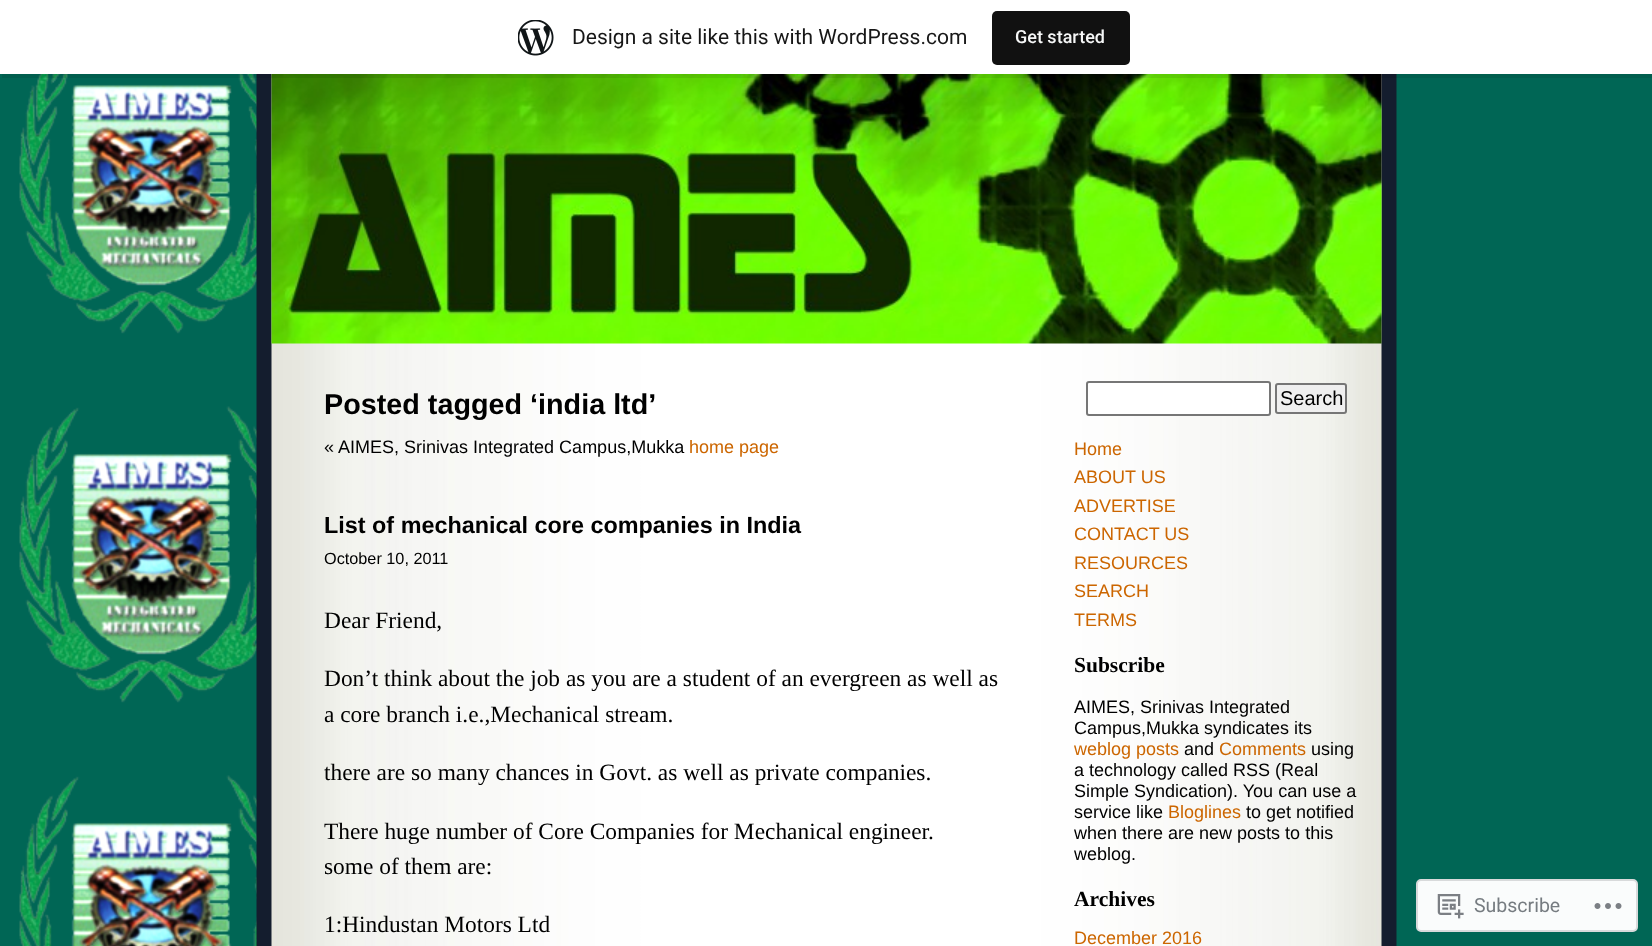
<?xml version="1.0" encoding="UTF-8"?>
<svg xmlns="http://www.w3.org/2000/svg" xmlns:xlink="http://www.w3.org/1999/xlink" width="1652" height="946">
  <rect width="100%" height="100%" fill="#006655" />
  <image x="19" y="74" width="238" height="872" xlink:href="image1.png" />
  <image x="256" y="74" width="1141" height="872" xlink:href="image3.png" />
  <image x="271" y="74" width="1111" height="270" xlink:href="image4.png" />
  <path d="M 2 74 v 4 h 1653 v -73 h -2 v 69 z" fill="#000000" fill-opacity="0.08" />
  <rect width="1652" height="74" fill="#ffffff" />
  <image x="518" y="20" width="36" height="36" xlink:href="image2.png" />
  <rect x="992" y="11" width="138" height="54" rx="5" fill="#111111" />
  <rect x="1087" y="382" width="183" height="33" rx="2" fill="#ffffff" stroke="#767676" stroke-width="2" />
  <rect x="1276" y="384" width="70" height="29" rx="2" fill="#efefef" stroke="#767676" stroke-width="2" />
  <rect x="1417" y="880" width="220" height="51" rx="4" fill="#fafcfc" stroke="#d8dadb" stroke-width="2" />
  <image x="1437" y="894" width="27" height="25" xlink:href="image5.png" />
  <image x="1594" y="903" width="28" height="6" xlink:href="image6.png" />
  <text x="572" y="44" style="font-family: Roboto; font-size: 21px; fill: #171717">Design a site like this with WordPress.com</text>
  <text x="1015" y="43" style="font-family: Roboto; font-size: 18px; font-weight: 500; fill: #f6f7f7">Get started</text>
  <text x="324" y="414" style="font-family: Liberation Sans; font-size: 28.75px; font-weight: bold; fill: #000000">Posted tagged ‘india ltd’</text>
  <text x="324" y="453" style="font-family: Liberation Sans; font-size: 18px; fill: #000000">« AIMES, Srinivas Integrated Campus,Mukka</text>
  <text x="689" y="453" style="font-family: Liberation Sans; font-size: 18px; fill: #cc6600">home page</text>
  <text x="324" y="533" style="font-family: Liberation Sans; font-size: 23.4px; font-weight: bold; fill: #000000">List of mechanical core companies in India</text>
  <text x="324" y="564" style="font-family: Liberation Sans; font-size: 16.25px; fill: #000000">October 10, 2011</text>
  <text x="324" y="628" style="font-family: Liberation Serif; font-size: 23.4px; fill: #000000">Dear Friend,</text>
  <text x="324" y="686" style="font-family: Liberation Serif; font-size: 23.4px; fill: #000000">Don’t think about the job as you are a student of an evergreen as well as</text>
  <text x="324" y="722" style="font-family: Liberation Serif; font-size: 23.4px; fill: #000000">a core branch i.e.,Mechanical stream.</text>
  <text x="324" y="780" style="font-family: Liberation Serif; font-size: 23.4px; fill: #000000">there are so many chances in Govt. as well as private companies.</text>
  <text x="324" y="839" style="font-family: Liberation Serif; font-size: 23.4px; fill: #000000">There huge number of Core Companies for Mechanical engineer.</text>
  <text x="324" y="874" style="font-family: Liberation Serif; font-size: 23.4px; fill: #000000">some of them are:</text>
  <text x="324" y="932" style="font-family: Liberation Serif; font-size: 23.4px; fill: #000000">1:Hindustan Motors Ltd</text>
  <text x="1280" y="405" style="font-family: Liberation Sans; font-size: 20px; fill: #000000">Search</text>
  <text x="1074" y="455" style="font-family: Liberation Sans; font-size: 18px; fill: #cc6600">Home</text>
  <text x="1074" y="483" style="font-family: Liberation Sans; font-size: 18px; fill: #cc6600">ABOUT US</text>
  <text x="1074" y="512" style="font-family: Liberation Sans; font-size: 18px; fill: #cc6600">ADVERTISE</text>
  <text x="1074" y="540" style="font-family: Liberation Sans; font-size: 18px; fill: #cc6600">CONTACT US</text>
  <text x="1074" y="569" style="font-family: Liberation Sans; font-size: 18px; fill: #cc6600">RESOURCES</text>
  <text x="1074" y="597" style="font-family: Liberation Sans; font-size: 18px; fill: #cc6600">SEARCH</text>
  <text x="1074" y="626" style="font-family: Liberation Sans; font-size: 18px; fill: #cc6600">TERMS</text>
  <text x="1074" y="672" style="font-family: Liberation Serif; font-size: 21.5px; font-weight: bold; fill: #000000">Subscribe</text>
  <text x="1074" y="713" style="font-family: Liberation Sans; font-size: 18px; fill: #000000">AIMES, Srinivas Integrated</text>
  <text x="1074" y="734" style="font-family: Liberation Sans; font-size: 18px; fill: #000000">Campus,Mukka syndicates its</text>
  <text x="1074" y="755" style="font-family: Liberation Sans; font-size: 18px; fill: #cc6600">weblog posts</text>
  <text x="1184" y="755" style="font-family: Liberation Sans; font-size: 18px; fill: #000000">and</text>
  <text x="1219" y="755" style="font-family: Liberation Sans; font-size: 18px; fill: #cc6600">Comments</text>
  <text x="1311" y="755" style="font-family: Liberation Sans; font-size: 18px; fill: #000000">using</text>
  <text x="1074" y="776" style="font-family: Liberation Sans; font-size: 18px; fill: #000000">a technology called RSS (Real</text>
  <text x="1074" y="797" style="font-family: Liberation Sans; font-size: 18px; fill: #000000">Simple Syndication). You can use a</text>
  <text x="1074" y="818" style="font-family: Liberation Sans; font-size: 18px; fill: #000000">service like</text>
  <text x="1168" y="818" style="font-family: Liberation Sans; font-size: 18px; fill: #cc6600">Bloglines</text>
  <text x="1246" y="818" style="font-family: Liberation Sans; font-size: 18px; fill: #000000">to get notified</text>
  <text x="1074" y="839" style="font-family: Liberation Sans; font-size: 18px; fill: #000000">when there are new posts to this</text>
  <text x="1074" y="860" style="font-family: Liberation Sans; font-size: 18px; fill: #000000">weblog.</text>
  <text x="1074" y="906" style="font-family: Liberation Serif; font-size: 21.5px; font-weight: bold; fill: #000000">Archives</text>
  <text x="1074" y="944" style="font-family: Liberation Sans; font-size: 18px; fill: #cc6600">December 2016</text>
  <text x="1474" y="912" style="font-family: Roboto; font-size: 19.5px; fill: #767c81">Subscribe</text>
</svg>
